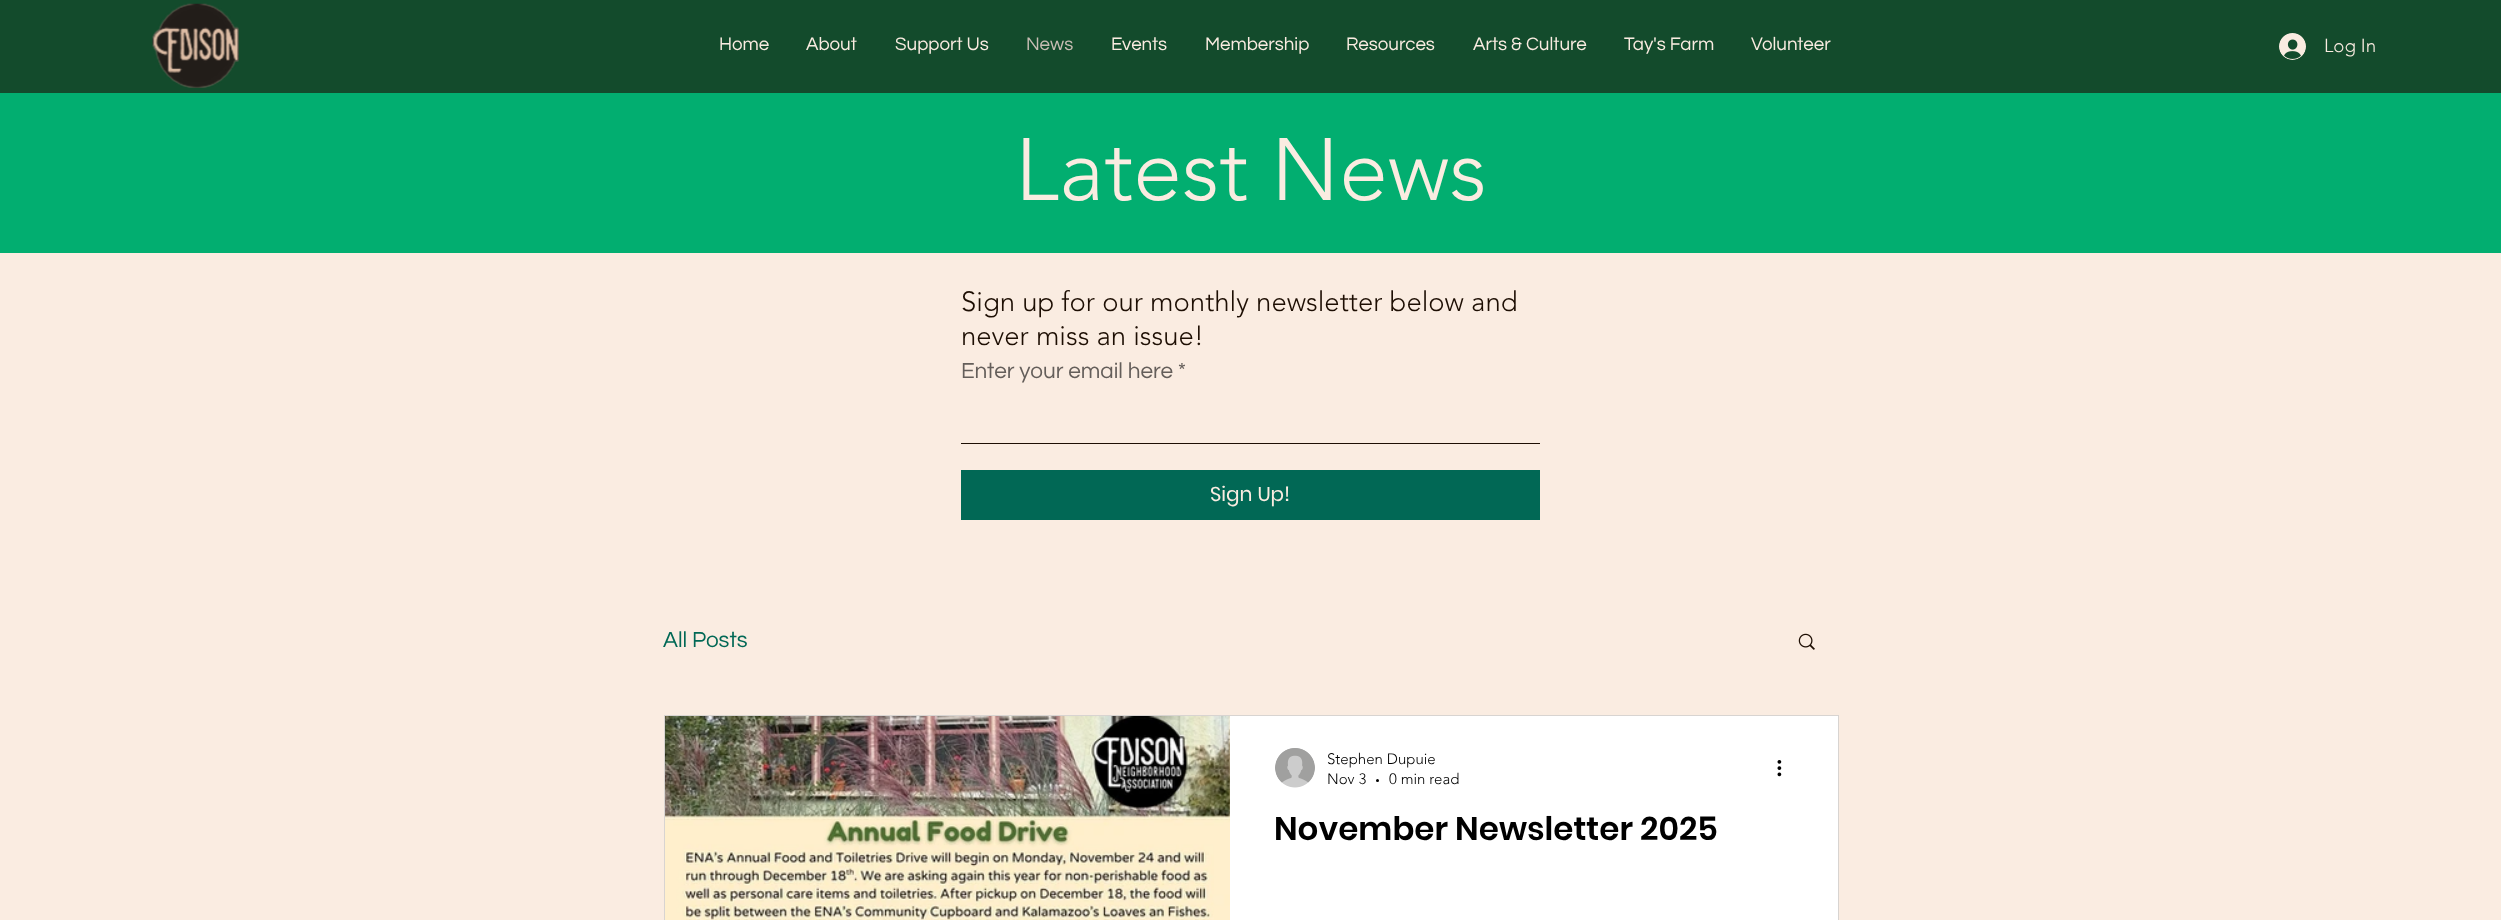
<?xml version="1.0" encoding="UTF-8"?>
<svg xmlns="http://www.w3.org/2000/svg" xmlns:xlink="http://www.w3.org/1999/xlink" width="2501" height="920">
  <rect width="100%" height="100%" fill="#faece1" />
  <rect width="2501" height="93" fill="#134b2c" />
  <image x="152" y="3" width="87" height="85" xlink:href="image1.png" />
  <image x="2279" y="33" width="27" height="27" xlink:href="image2.png" />
  <rect y="93" width="2501" height="160" fill="#02ae70" />
  <rect x="961" y="443" width="579" height="1" fill="#1d0e03" />
  <rect x="961" y="470" width="579" height="50" fill="#016855" />
  <image x="1798" y="633" width="17" height="17" xlink:href="image3.png" />
  <rect x="664.5" y="715.5" width="1174" height="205" fill="none" stroke="#d8d4d1" />
  <image x="665" y="716" width="565" height="204" xlink:href="image4.png" />
  <rect x="1230" y="716" width="608" height="204" fill="#ffffff" />
  <image x="1275" y="748" width="40" height="40" xlink:href="image5.png" />
  <circle cx="1377.5" cy="780.5" r="1.5" fill="#000000" />
  <image x="1777" y="760" width="5" height="17" xlink:href="image6.png" />
  <text x="719" y="50" style="font-family: Questrial; font-size: 18.75px; fill: #faece1">Home</text>
  <text x="806" y="50" style="font-family: Questrial; font-size: 18.75px; fill: #faece1">About</text>
  <text x="895" y="50" style="font-family: Questrial; font-size: 18.75px; fill: #faece1">Support Us</text>
  <text x="1026" y="50" style="font-family: Questrial; font-size: 18.75px; fill: #c8bdb4">News</text>
  <text x="1111" y="50" style="font-family: Questrial; font-size: 18.75px; fill: #faece1">Events</text>
  <text x="1205" y="50" style="font-family: Questrial; font-size: 18.75px; fill: #faece1">Membership</text>
  <text x="1346" y="50" style="font-family: Questrial; font-size: 18.75px; fill: #faece1">Resources</text>
  <text x="1473" y="50" style="font-family: Questrial; font-size: 18.75px; fill: #faece1">Arts &amp; Culture</text>
  <text x="1624" y="50" style="font-family: Questrial; font-size: 18.75px; fill: #faece1">Tay's Farm</text>
  <text x="1751" y="50" style="font-family: Questrial; font-size: 18.75px; fill: #faece1">Volunteer</text>
  <text x="2324" y="52" style="font-family: 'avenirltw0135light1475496'; font-size: 18.75px; font-weight: 300; fill: #faece1">Log In</text>
  <text x="1015" y="200" style="font-family: 'avenirltw0135light1475496'; font-size: 87.5px; font-weight: 300; fill: #faece1">Latest News</text>
  <text x="961" y="311" style="font-family: 'avenirltw0135light1475496'; font-size: 27.5px; font-weight: 300; fill: #1d0e03">Sign up for our monthly newsletter below and</text>
  <text x="961" y="345" style="font-family: 'avenirltw0135light1475496'; font-size: 27.5px; font-weight: 300; fill: #1d0e03">never miss an issue!</text>
  <text x="961" y="378" style="font-family: Questrial; font-size: 22.5px; fill: #645e5a">Enter your email here *</text>
  <text x="1210" y="501" style="font-family: Poppins; font-size: 20px; fill: #faece1">Sign Up!</text>
  <text x="663" y="647" style="font-family: Questrial; font-size: 22.5px; fill: #016855">All Posts</text>
  <text x="1327" y="764" style="font-family: 'avenirltw0135light1475496'; font-size: 15px; font-weight: 300; fill: #000000">Stephen Dupuie</text>
  <text x="1327" y="784" style="font-family: 'avenirltw0135light1475496'; font-size: 15px; font-weight: 300; fill: #000000">Nov 3</text>
  <text x="1389" y="784" style="font-family: 'avenirltw0135light1475496'; font-size: 15px; font-weight: 300; fill: #000000">0 min read</text>
  <text x="1274" y="840" style="font-family: Poppins; font-size: 32.5px; font-weight: 600; fill: #000000">November Newsletter 2025</text>
</svg>
